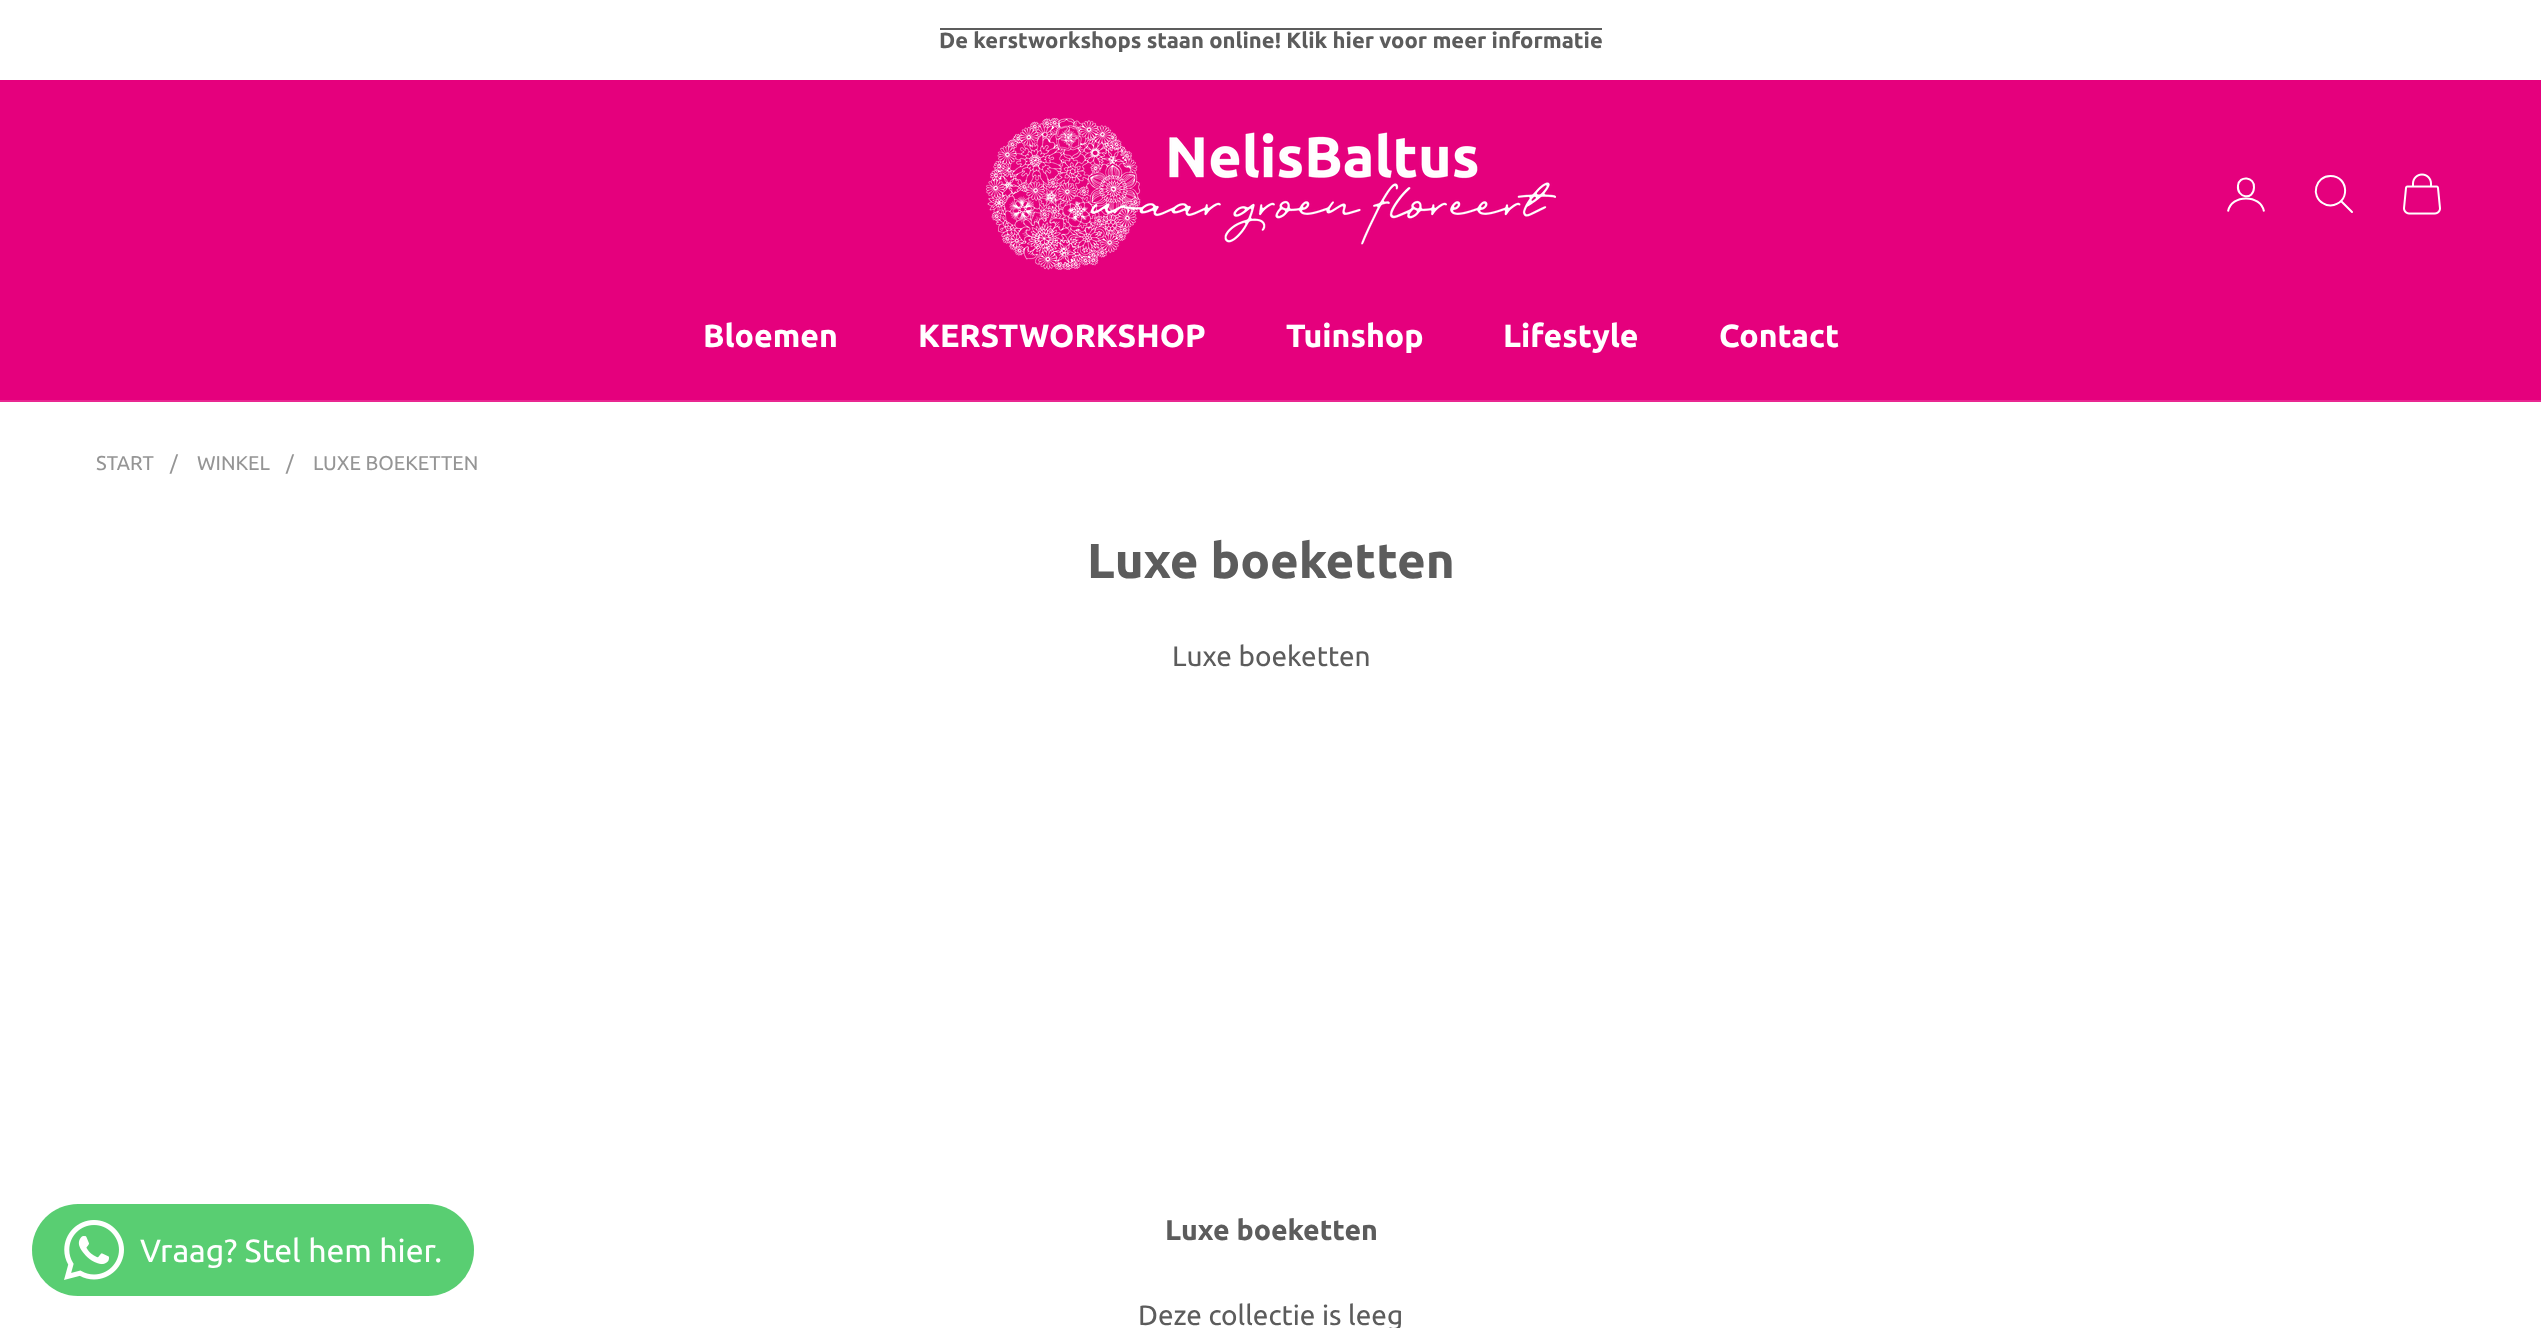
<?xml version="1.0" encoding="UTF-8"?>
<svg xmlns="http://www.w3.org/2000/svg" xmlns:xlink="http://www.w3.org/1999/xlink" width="2541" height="1328">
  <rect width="100%" height="100%" fill="#ffffff" />
  <rect x="940" y="28" width="662" height="2" fill="#5c5c5c" />
  <rect y="80" width="2541" height="320" fill="#e5007d" />
  <rect y="400" width="2541" height="2" fill="#e92691" />
  <image x="986" y="118" width="570" height="152" xlink:href="image1.png" />
  <path d="M 2254 187.5 c -0.5 13.5 -17.5 10.5 -16 -2 c 1 -10.5 17 -9 16 2 z" fill="none" stroke="#ffffff" stroke-width="2" stroke-linecap="round" stroke-linejoin="round" />
  <path d="M 2228 211.5 c 3 -17.5 33 -17.5 36 0" fill="none" stroke="#ffffff" stroke-width="2" />
  <path d="M 2330.5 176 c -15 0 -20.5 20 -7 27.5 c 2 1.5 4.5 2 7 2 c 20 -1 19 -29.5 0 -29.5 z" fill="none" stroke="#ffffff" stroke-width="2" />
  <path d="M 2341.5 201.5 l 10.5 10.5" fill="none" stroke="#ffffff" stroke-width="2" stroke-linecap="round" />
  <image x="2403" y="173" width="38" height="42" xlink:href="image2.png" />
  <rect x="32" y="1204" width="442" height="92" rx="46" fill="#59ce72" />
  <image x="64" y="1220" width="60" height="60" xlink:href="image3.png" />
  <text x="939" y="48" style="font-family: Ubuntu; font-size: 22px; font-weight: bold; fill: #5c5c5c">De kerstworkshops staan online! Klik hier voor meer informatie</text>
  <text x="703" y="347" style="font-family: Ubuntu; font-size: 32px; font-weight: bold; fill: #ffffff">Bloemen</text>
  <text x="918" y="347" style="font-family: Ubuntu; font-size: 32px; font-weight: bold; fill: #ffffff">KERSTWORKSHOP</text>
  <text x="1286" y="347" style="font-family: Ubuntu; font-size: 32px; font-weight: bold; fill: #ffffff">Tuinshop</text>
  <text x="1503" y="347" style="font-family: Ubuntu; font-size: 32px; font-weight: bold; fill: #ffffff">Lifestyle</text>
  <text x="1719" y="347" style="font-family: Ubuntu; font-size: 32px; font-weight: bold; fill: #ffffff">Contact</text>
  <text x="96" y="470" style="font-family: Ubuntu; font-size: 20px; fill: #959595">START</text>
  <text x="170" y="470" style="font-family: Ubuntu; font-size: 20px; fill: #959595">/</text>
  <text x="197" y="470" style="font-family: Ubuntu; font-size: 20px; fill: #959595">WINKEL</text>
  <text x="286" y="470" style="font-family: Ubuntu; font-size: 20px; fill: #959595">/</text>
  <text x="313" y="470" style="font-family: Ubuntu; font-size: 20px; fill: #959595">LUXE BOEKETTEN</text>
  <text x="1087" y="578" style="font-family: Ubuntu; font-size: 49.25px; font-weight: bold; fill: #5c5c5c">Luxe boeketten</text>
  <text x="1172" y="666" style="font-family: Ubuntu; font-size: 28px; fill: #5c5c5c">Luxe boeketten</text>
  <text x="1165" y="1240" style="font-family: Ubuntu; font-size: 28.5px; font-weight: bold; fill: #5c5c5c">Luxe boeketten</text>
  <text x="1138" y="1325" style="font-family: Ubuntu; font-size: 28px; fill: #5c5c5c">Deze collectie is leeg</text>
  <text x="140" y="1262" style="font-family: Ubuntu; font-size: 32px; fill: #ffffff">Vraag? Stel hem hier.</text>
</svg>
